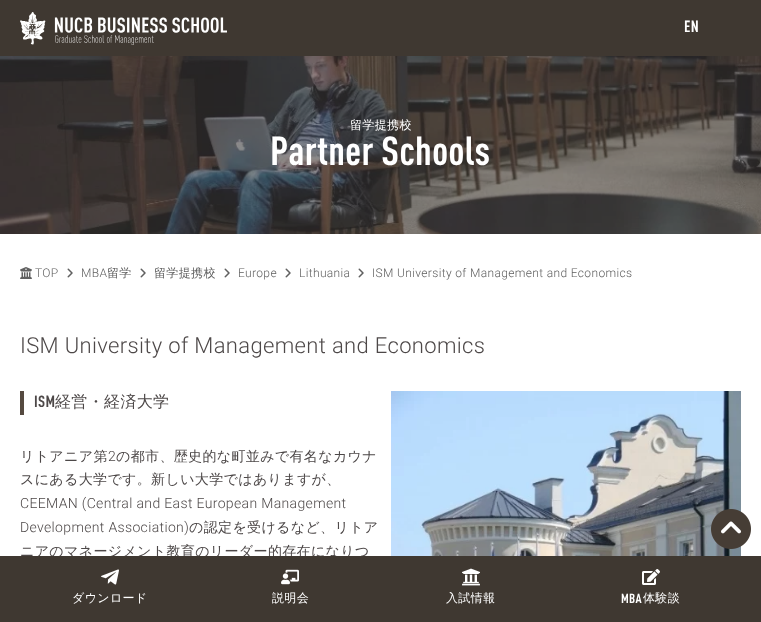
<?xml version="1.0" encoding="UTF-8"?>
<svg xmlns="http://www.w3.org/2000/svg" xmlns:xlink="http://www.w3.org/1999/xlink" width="761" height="622">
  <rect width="100%" height="100%" fill="#ffffff" />
  <rect width="761" height="56" fill="#3f3831" />
  <image x="20" y="12" width="207" height="33" xlink:href="image1.png" />
  <image x="0" y="56" width="761" height="178" xlink:href="image2.png" />
  <image x="20" y="267" width="12" height="12" xlink:href="image3.png" />
  <image x="67" y="268" width="6" height="10" xlink:href="image4.png" />
  <image x="140" y="268" width="6" height="10" xlink:href="image4.png" />
  <image x="224" y="268" width="6" height="10" xlink:href="image4.png" />
  <image x="285" y="268" width="6" height="10" xlink:href="image4.png" />
  <image x="358" y="268" width="6" height="10" xlink:href="image4.png" />
  <rect x="20" y="391" width="4" height="24" fill="#554a40" />
  <image x="391" y="391" width="350" height="165" xlink:href="image5.png" />
  <circle cx="729" cy="531" r="16" fill="#ffffff" />
  <image x="711" y="509" width="40" height="40" xlink:href="image6.png" />
  <text x="684" y="32" style="font-family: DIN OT; font-size: 16px; font-weight: bold; letter-spacing: 0.35px; fill: #ffffff">EN</text>
  <text x="350" y="129" style="font-family: WenQuanYi Zen Hei; font-size: 12px; font-weight: 500; letter-spacing: 0.35px; fill: #ffffff">留学提携校</text>
  <text x="270" y="165" style="font-family: DIN OT; font-size: 40px; font-weight: bold; letter-spacing: 0.35px; fill: #ffffff">Partner Schools</text>
  <text x="35" y="277" style="font-family: Roboto; font-size: 12px; font-weight: 300; letter-spacing: 0.35px; fill: #606060">TOP</text>
  <text x="81" y="277" style="font-family: Roboto; font-size: 12px; font-weight: 300; letter-spacing: 0.35px; fill: #606060">MBA</text>
  <text x="107" y="277" style="font-family: WenQuanYi Zen Hei; font-size: 12px; font-weight: 500; letter-spacing: 0.35px; fill: #606060">留学</text>
  <text x="154" y="277" style="font-family: WenQuanYi Zen Hei; font-size: 12px; font-weight: 500; letter-spacing: 0.35px; fill: #606060">留学提携校</text>
  <text x="238" y="277" style="font-family: Roboto; font-size: 12px; font-weight: 300; letter-spacing: 0.35px; fill: #606060">Europe</text>
  <text x="299" y="277" style="font-family: Roboto; font-size: 12px; font-weight: 300; letter-spacing: 0.35px; fill: #606060">Lithuania</text>
  <text x="372" y="277" style="font-family: Roboto; font-size: 12px; font-weight: 300; letter-spacing: 0.35px; fill: #606060">ISM University of Management and Economics</text>
  <text x="20" y="353" style="font-family: Roboto; font-size: 22px; font-weight: 300; letter-spacing: 0.35px; fill: #4d4848">ISM University of Management and Economics</text>
  <text x="34" y="407" style="font-family: DIN OT; font-size: 16px; font-weight: bold; letter-spacing: 0.35px; fill: #4d4848">ISM</text>
  <text x="55" y="407" style="font-family: WenQuanYi Zen Hei; font-size: 16px; font-weight: 500; letter-spacing: 0.35px; fill: #4d4848">経営・経済大学</text>
  <text x="20" y="461" style="font-family: WenQuanYi Zen Hei; font-size: 14px; font-weight: 500; letter-spacing: 0.35px; fill: #4d4848">リトアニア第</text>
  <text x="108" y="461" style="font-family: Roboto; font-size: 14px; font-weight: 300; letter-spacing: 0.35px; fill: #4d4848">2</text>
  <text x="116" y="461" style="font-family: WenQuanYi Zen Hei; font-size: 14px; font-weight: 500; letter-spacing: 0.35px; fill: #4d4848">の都市、歴史的な町並みで有名なカウナ</text>
  <text x="20" y="484" style="font-family: WenQuanYi Zen Hei; font-size: 14px; font-weight: 500; letter-spacing: 0.35px; fill: #4d4848">スにある大学です。新しい大学ではありますが、</text>
  <text x="20" y="508" style="font-family: Roboto; font-size: 14px; font-weight: 300; letter-spacing: 0.35px; fill: #4d4848">CEEMAN (Central and East European Management</text>
  <text x="20" y="532" style="font-family: Roboto; font-size: 14px; font-weight: 300; letter-spacing: 0.35px; fill: #4d4848">Development Association)</text>
  <text x="189" y="532" style="font-family: WenQuanYi Zen Hei; font-size: 14px; font-weight: 500; letter-spacing: 0.35px; fill: #4d4848">の認定を受けるなど、リトア</text>
  <text x="20" y="556" style="font-family: WenQuanYi Zen Hei; font-size: 14px; font-weight: 500; letter-spacing: 0.35px; fill: #4d4848">ニアのマネージメント教育のリーダー的存在になりつ</text>
  <rect y="556" width="761" height="66" fill="#3f3831" />
  <image x="101" y="569" width="18" height="16" xlink:href="image7.png" />
  <text x="72" y="602" style="font-family: WenQuanYi Zen Hei; font-size: 12px; font-weight: 500; letter-spacing: 0.35px; fill: #ffffff">ダウンロード</text>
  <image x="281" y="569" width="18" height="16" xlink:href="image8.png" />
  <text x="272" y="602" style="font-family: WenQuanYi Zen Hei; font-size: 12px; font-weight: 500; letter-spacing: 0.35px; fill: #ffffff">説明会</text>
  <image x="462" y="568" width="18" height="18" xlink:href="image9.png" />
  <text x="446" y="602" style="font-family: WenQuanYi Zen Hei; font-size: 12px; font-weight: 500; letter-spacing: 0.35px; fill: #ffffff">入試情報</text>
  <image x="642" y="569" width="18" height="16" xlink:href="image10.png" />
  <text x="621" y="603" style="font-family: DIN OT; font-size: 13px; font-weight: bold; letter-spacing: 0.35px; fill: #ffffff">MBA</text>
  <text x="643" y="602" style="font-family: WenQuanYi Zen Hei; font-size: 12px; font-weight: 500; letter-spacing: 0.35px; fill: #ffffff">体験談</text>
</svg>
